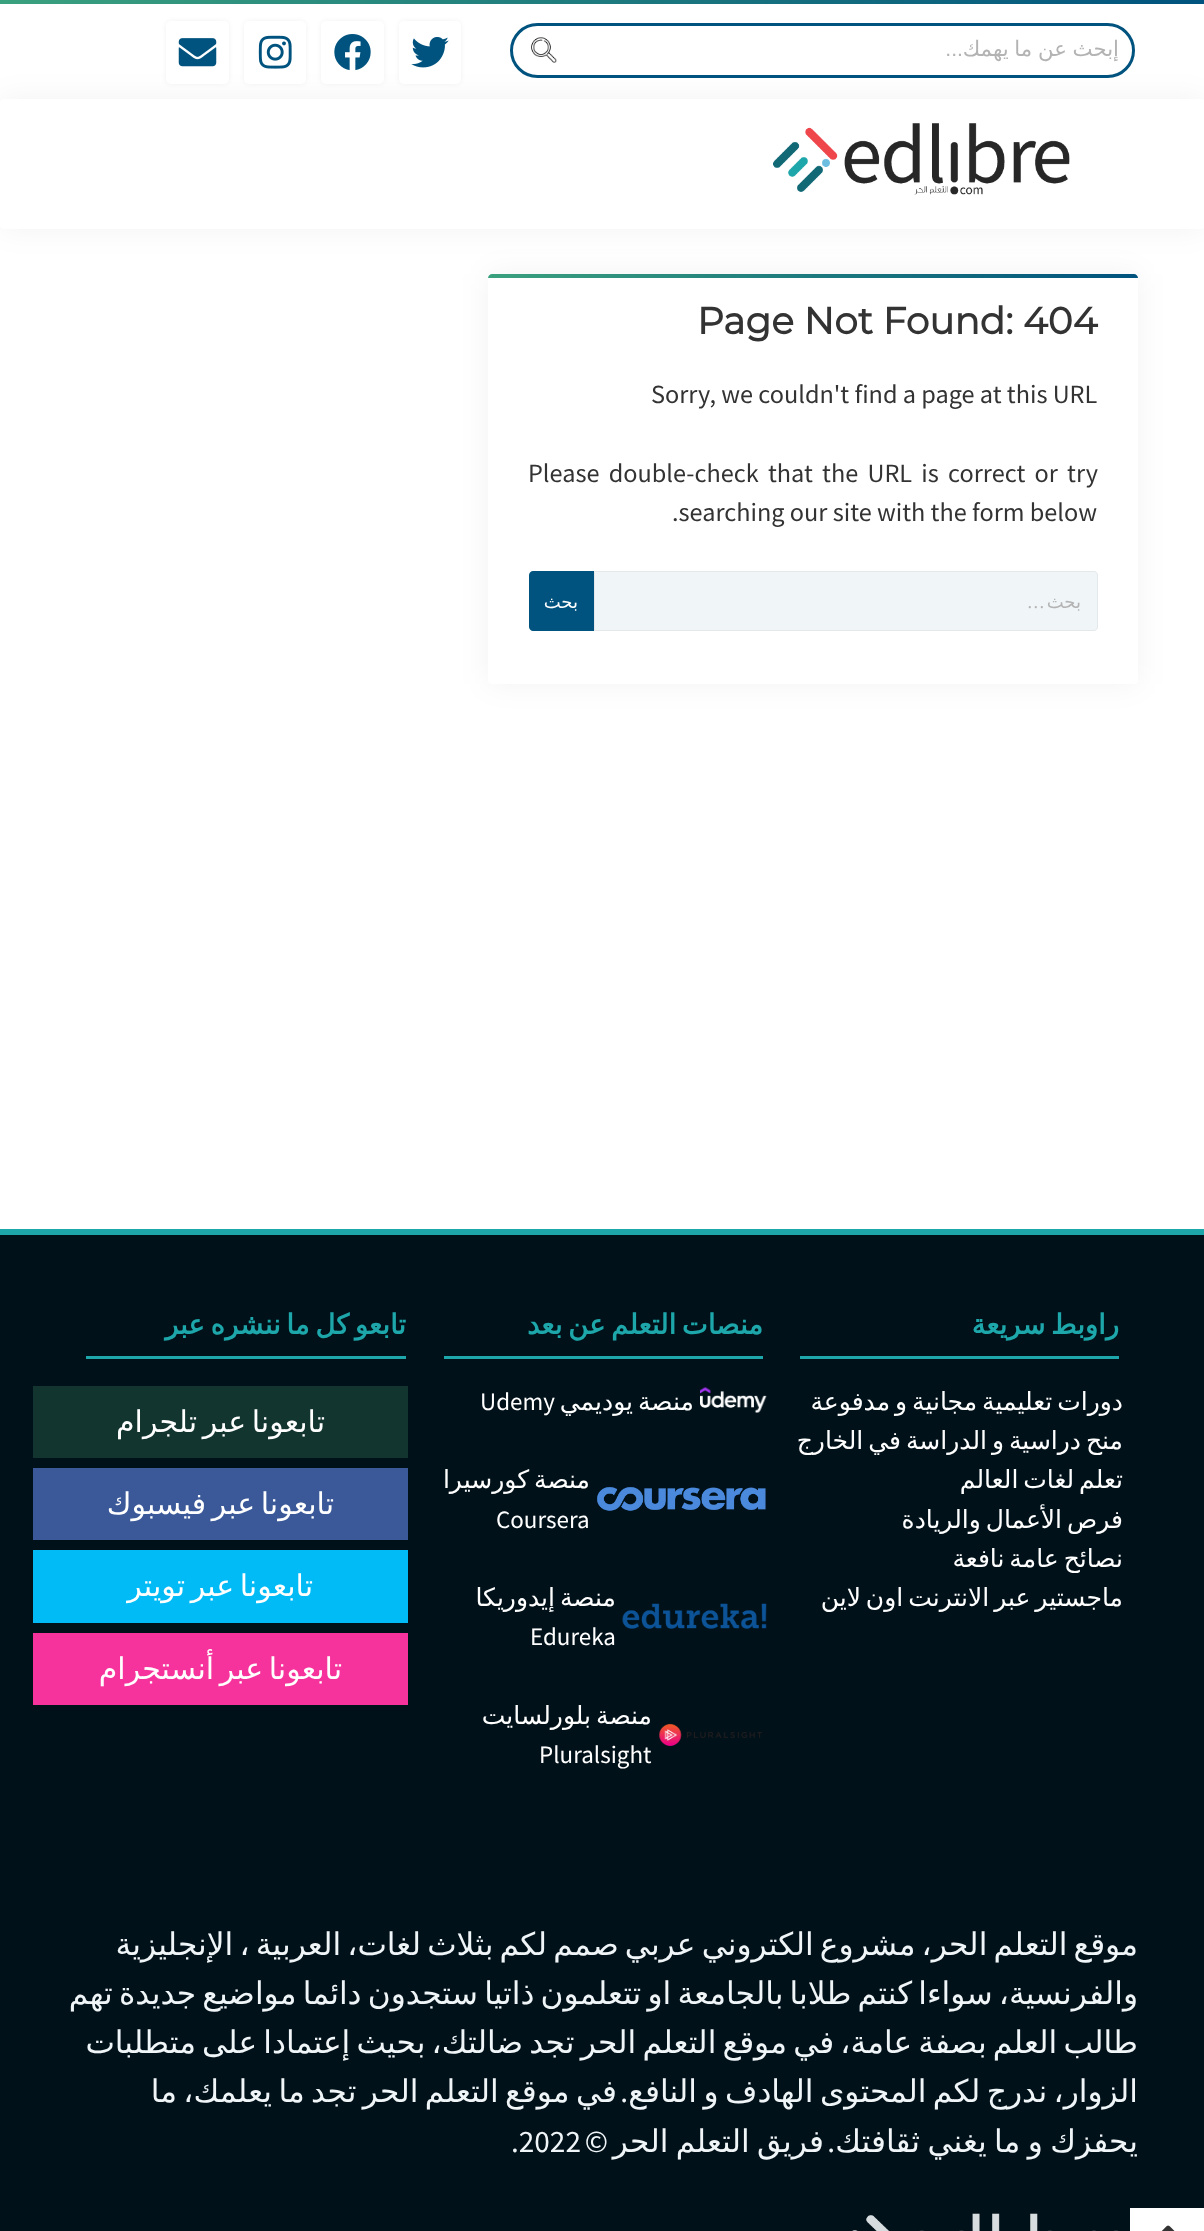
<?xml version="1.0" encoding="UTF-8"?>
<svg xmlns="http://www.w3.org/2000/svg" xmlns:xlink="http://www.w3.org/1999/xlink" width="1204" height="2231">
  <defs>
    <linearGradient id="g1" gradientUnits="userSpaceOnUse" x1="0" y1="1.9" x2="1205" y2="1.9"><stop offset="0" stop-color="#3aa17e" /><stop offset="1" stop-color="#00537e" /></linearGradient>
    <linearGradient id="g2" gradientUnits="userSpaceOnUse" x1="488" y1="276" x2="1138" y2="276"><stop offset="0" stop-color="#3aa17e" /><stop offset="1" stop-color="#00537e" /></linearGradient>
  </defs>
  <rect width="100%" height="100%" fill="#ffffff" />
  <rect width="1204" height="4" fill="url(#g1)" />
  <rect y="99" width="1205" height="130" rx="4" fill="#000000" fill-opacity="0.05" filter="blur(15px)" />
  <rect x="511.5" y="24.5" width="622" height="52" rx="26" fill="none" stroke="#00537e" stroke-width="3" />
  <image x="531" y="37" width="26" height="26" xlink:href="image1.png" />
  <rect x="399" y="21" width="62" height="63" rx="5" fill="#000000" fill-opacity="0.05" filter="blur(2.5px)" />
  <rect x="399" y="21" width="62" height="63" rx="5" fill="#ffffff" />
  <image x="411" y="37" width="38" height="31" xlink:href="image2.png" />
  <rect x="321" y="21" width="63" height="63" rx="5" fill="#000000" fill-opacity="0.05" filter="blur(2.5px)" />
  <rect x="321" y="21" width="63" height="63" rx="5" fill="#ffffff" />
  <image x="334" y="34" width="37" height="37" xlink:href="image3.png" />
  <rect x="244" y="21" width="62" height="63" rx="5" fill="#000000" fill-opacity="0.05" filter="blur(2.5px)" />
  <rect x="244" y="21" width="62" height="63" rx="5" fill="#ffffff" />
  <image x="258" y="35" width="34" height="34" xlink:href="image4.png" />
  <rect x="166" y="21" width="63" height="63" rx="5" fill="#000000" fill-opacity="0.05" filter="blur(2.5px)" />
  <rect x="166" y="21" width="63" height="63" rx="5" fill="#ffffff" />
  <image x="178" y="38" width="39" height="29" xlink:href="image5.png" />
  <rect y="99" width="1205" height="130" rx="4" fill="#ffffff" />
  <image x="773" y="123" width="297" height="72" xlink:href="image6.png" />
  <rect x="488" y="274" width="650" height="410" rx="4" fill="#000000" fill-opacity="0.05" filter="blur(15px)" />
  <rect x="488" y="274" width="650" height="410" rx="4" fill="#ffffff" />
  <path d="M 492 274 h 642 c 2 0 4 2 4 4 h -650 c 0 -2 2 -4 4 -4 z" fill="url(#g2)" />
  <path d="M 594.5 571.5 h 499.5 c 2 0 3.5 1.5 3.5 3.5 v 52 c 0 2 -1.5 3.5 -3.5 3.5 h -499.5 z" fill="#f0f5f8" stroke="#e4e8eb" />
  <path d="M 533 571 h 61 v 60 h -61 c -2 0 -4 -2 -4 -4 v -52 c 0 -2 2 -4 4 -4 z" fill="#00537e" />
  <rect y="1235" width="1204" height="996" fill="#011119" />
  <rect y="1229" width="1204" height="6" fill="#1da7aa" />
  <rect x="800" y="1356" width="319" height="3" fill="#1da7aa" />
  <rect x="444" y="1356" width="319" height="3" fill="#1da7aa" />
  <image x="700" y="1387" width="67" height="26" xlink:href="image7.png" />
  <image x="597" y="1487" width="169" height="24" xlink:href="image8.png" />
  <image x="622" y="1603" width="145" height="26" xlink:href="image9.png" />
  <image x="659" y="1723" width="104" height="24" xlink:href="image10.png" />
  <rect x="86" y="1356" width="320" height="3" fill="#1da7aa" />
  <rect x="33" y="1386" width="375" height="72" fill="#133530" />
  <rect x="33" y="1468" width="375" height="72" fill="#3b5999" />
  <rect x="33" y="1550" width="375" height="73" fill="#01bbf6" />
  <rect x="33" y="1633" width="375" height="72" fill="#f6339c" />
  <image x="852" y="2213" width="267" height="18" xlink:href="image11.png" />
  <rect x="1130" y="2208" width="74" height="23" fill="#ffffff" />
  <image x="1161" y="2225" width="14" height="6" xlink:href="image12.png" />
  <text x="1119" y="56" word-spacing="-1" style="font-family: DejaVu Sans; font-size: 21.25px; direction: rtl; fill: #b3b3b3">إبحث عن ما يهمك</text>
  <text x="963" y="56" style="font-family: Liberation Sans; font-size: 21.25px; direction: rtl; fill: #b3b3b3">...</text>
  <text x="697" y="334" style="font-family: Montserrat; font-size: 37.5px; font-weight: bold; fill: #333333">Page Not Found: 404</text>
  <text x="651" y="403" style="font-family: Source Sans Pro; font-size: 26.25px; fill: #333333">Sorry, we couldn't find a page at this URL</text>
  <text x="528" y="482" word-spacing="4" style="font-family: Source Sans Pro; font-size: 26.25px; fill: #333333">Please double-check that the URL is correct or try</text>
  <text x="672" y="521" style="font-family: Source Sans Pro; font-size: 26.25px; fill: #333333">.searching our site with the form below</text>
  <text x="1081" y="608" style="font-family: DejaVu Sans; font-size: 18px; direction: rtl; fill: #b3b3b3">بحث</text>
  <text x="1044" y="608" style="font-family: Source Sans Pro; font-size: 18px; direction: rtl; fill: #b3b3b3">…</text>
  <text x="578" y="608" style="font-family: DejaVu Sans; font-size: 18px; direction: rtl; fill: #ffffff">بحث</text>
  <text x="1119" y="1334" word-spacing="-3" style="font-family: DejaVu Sans; font-size: 27.5px; font-weight: bold; letter-spacing: 0.55px; direction: rtl; fill: #1da7aa">راوبط سريعة</text>
  <text x="1123" y="1410" word-spacing="-3" style="font-family: DejaVu Sans; font-size: 25px; direction: rtl; fill: #ffffff">دورات تعليمية مجانية و مدفوعة</text>
  <text x="1123" y="1449" word-spacing="-3" style="font-family: DejaVu Sans; font-size: 25px; direction: rtl; fill: #ffffff">منح دراسية و الدراسة في الخارج</text>
  <text x="1123" y="1488" word-spacing="-3" style="font-family: DejaVu Sans; font-size: 25px; direction: rtl; fill: #ffffff">تعلم لغات العالم</text>
  <text x="1123" y="1528" word-spacing="-3" style="font-family: DejaVu Sans; font-size: 25px; direction: rtl; fill: #ffffff">فرص الأعمال والريادة</text>
  <text x="1123" y="1567" word-spacing="-3" style="font-family: DejaVu Sans; font-size: 25px; direction: rtl; fill: #ffffff">نصائح عامة نافعة</text>
  <text x="1123" y="1606" word-spacing="-3" style="font-family: DejaVu Sans; font-size: 25px; direction: rtl; fill: #ffffff">ماجستير عبر الانترنت اون لاين</text>
  <text x="763" y="1334" word-spacing="-3" style="font-family: DejaVu Sans; font-size: 27.5px; font-weight: bold; letter-spacing: 0.55px; direction: rtl; fill: #1da7aa">منصات التعلم عن بعد</text>
  <text x="694" y="1410" word-spacing="-3" style="font-family: DejaVu Sans; font-size: 25px; direction: rtl; fill: #ffffff">منصة يوديمي</text>
  <text x="480" y="1410" style="font-family: Source Sans Pro; font-size: 25px; fill: #ffffff">Udemy</text>
  <text x="590" y="1488" word-spacing="-3" style="font-family: DejaVu Sans; font-size: 25px; direction: rtl; fill: #ffffff">منصة كورسيرا</text>
  <text x="496" y="1528" style="font-family: Source Sans Pro; font-size: 25px; fill: #ffffff">Coursera</text>
  <text x="616" y="1606" word-spacing="-3" style="font-family: DejaVu Sans; font-size: 25px; direction: rtl; fill: #ffffff">منصة إيدوريكا</text>
  <text x="530" y="1645" style="font-family: Source Sans Pro; font-size: 25px; fill: #ffffff">Edureka</text>
  <text x="652" y="1724" word-spacing="-3" style="font-family: DejaVu Sans; font-size: 25px; direction: rtl; fill: #ffffff">منصة بلورلسايت</text>
  <text x="539" y="1763" style="font-family: Source Sans Pro; font-size: 25px; fill: #ffffff">Pluralsight</text>
  <text x="406" y="1334" word-spacing="-3" style="font-family: DejaVu Sans; font-size: 27.5px; font-weight: bold; letter-spacing: 0.55px; direction: rtl; fill: #1da7aa">تابعو كل ما ننشره عبر</text>
  <text x="325" y="1432" word-spacing="-4" style="font-family: DejaVu Sans; font-size: 30px; direction: rtl; fill: #ffffff">تابعونا عبر تلجرام</text>
  <text x="334" y="1514" word-spacing="-4" style="font-family: DejaVu Sans; font-size: 30px; direction: rtl; fill: #ffffff">تابعونا عبر فيسبوك</text>
  <text x="313" y="1596" word-spacing="-4" style="font-family: DejaVu Sans; font-size: 30px; direction: rtl; fill: #ffffff">تابعونا عبر تويتر</text>
  <text x="342" y="1679" word-spacing="-4" style="font-family: DejaVu Sans; font-size: 30px; direction: rtl; fill: #ffffff">تابعونا عبر أنستجرام</text>
  <text x="1138" y="1955" word-spacing="-3.75" style="font-family: DejaVu Sans; font-size: 31.25px; direction: rtl; fill: #f0f5f8">موقع التعلم الحر، مشروع الكتروني عربي صمم لكم بثلاث لغات، العربية ، الإنجليزية</text>
  <text x="1138" y="2004" word-spacing="-3.75" style="font-family: DejaVu Sans; font-size: 31.25px; direction: rtl; fill: #f0f5f8">والفرنسية، سواءا كنتم طلابا بالجامعة او تتعلمون ذاتيا ستجدون دائما مواضيع جديدة تهم</text>
  <text x="1138" y="2053" word-spacing="-3.75" style="font-family: DejaVu Sans; font-size: 31.25px; direction: rtl; fill: #f0f5f8">طالب العلم بصفة عامة، في موقع التعلم الحر تجد ضالتك، بحيث إعتمادا على متطلبات</text>
  <text x="1138" y="2102" word-spacing="-3.5" style="font-family: DejaVu Sans; font-size: 31.25px; direction: rtl; fill: #f0f5f8">الزوار، ندرج لكم المحتوى الهادف و النافع</text>
  <text x="628" y="2102" style="font-family: Source Sans Pro; font-size: 31.25px; direction: rtl; fill: #f0f5f8">.</text>
  <text x="617" y="2102" word-spacing="-3.5" style="font-family: DejaVu Sans; font-size: 31.25px; direction: rtl; fill: #f0f5f8">في موقع التعلم الحر تجد ما يعلمك، ما</text>
  <text x="1138" y="2152" word-spacing="-2.5" style="font-family: DejaVu Sans; font-size: 31.25px; direction: rtl; fill: #f0f5f8">يحفزك و ما يغني ثقافتك</text>
  <text x="835" y="2152" style="font-family: Source Sans Pro; font-size: 31.25px; direction: rtl; fill: #f0f5f8">.</text>
  <text x="824" y="2152" word-spacing="-2.5" style="font-family: DejaVu Sans; font-size: 31.25px; direction: rtl; fill: #f0f5f8">فريق التعلم الحر</text>
  <text x="608" y="2152" style="font-family: Source Sans Pro; font-size: 31.25px; direction: rtl; fill: #f0f5f8">©</text>
  <text x="511" y="2152" style="font-family: Source Sans Pro; font-size: 31.25px; fill: #f0f5f8">.2022</text>
</svg>
